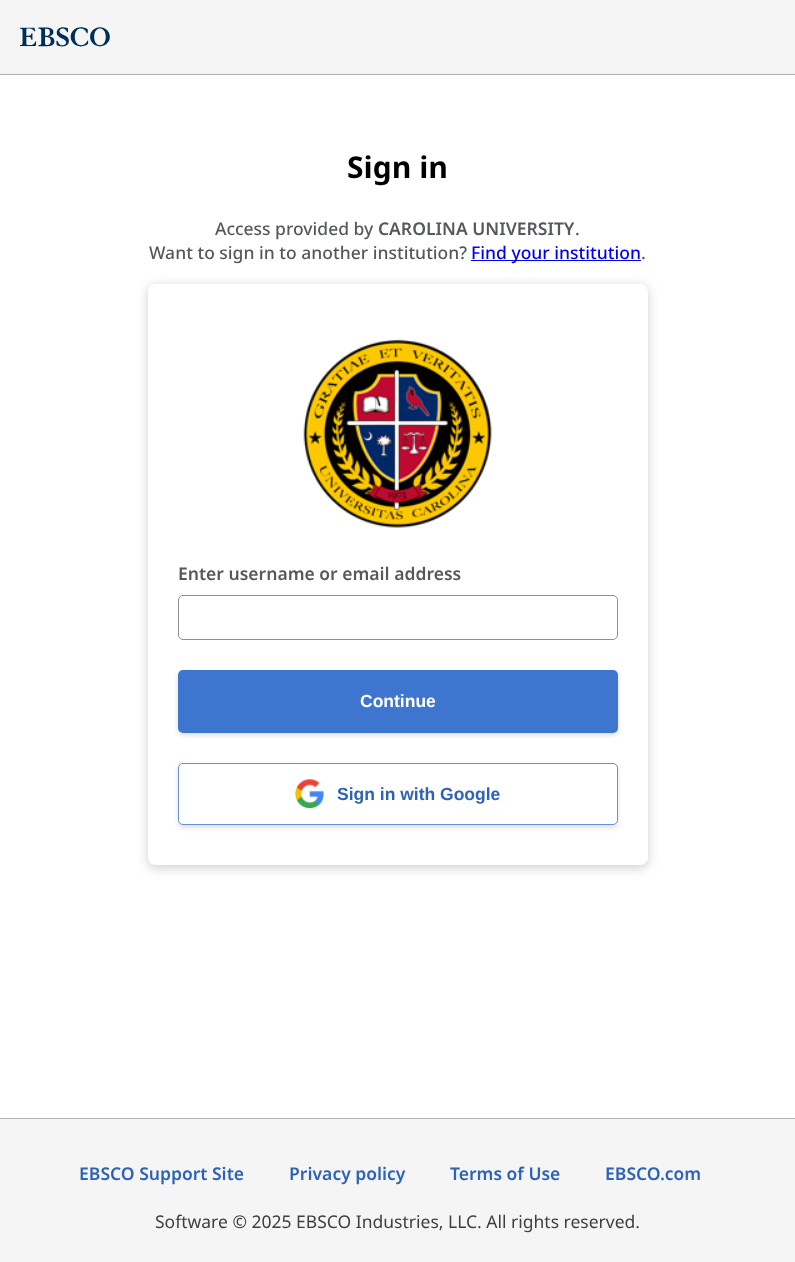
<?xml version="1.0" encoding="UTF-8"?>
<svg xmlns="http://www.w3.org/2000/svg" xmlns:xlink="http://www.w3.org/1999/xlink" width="795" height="1262">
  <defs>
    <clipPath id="clip1"><path d="M 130 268 h 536 v 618 h -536 z m 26 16 h 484 c 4.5 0 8 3.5 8 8 v 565 c 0 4.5 -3.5 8 -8 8 h -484 c -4.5 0 -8 -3.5 -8 -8 v -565 c 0 -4.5 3.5 -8 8 -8 z" clip-rule="evenodd" /></clipPath>
  </defs>
  <rect width="100%" height="100%" fill="#ffffff" />
  <rect width="795" height="74" fill="#f5f5f5" />
  <rect y="74" width="795" height="1" fill="#afb2b5" />
  <image x="20" y="27" width="90" height="20" xlink:href="image1.png" />
  <rect x="471" y="260" width="170" height="1" fill="#0000ee" />
  <g clip-path="url(#clip1)">
    <rect x="148" y="286" width="500" height="582" rx="8" fill="#a0a0a0" fill-opacity="0.5" filter="blur(5.5px)" />
  </g>
  <image x="303" y="339" width="189" height="189" xlink:href="image2.png" />
  <rect x="178.5" y="595.5" width="439" height="44" rx="4.5" fill="none" stroke="#8d9095" />
  <rect x="178" y="673" width="440" height="62" rx="5" fill="#000000" fill-opacity="0.15" filter="blur(2.5px)" />
  <rect x="178" y="670" width="440" height="63" rx="5" fill="#3e75cf" />
  <rect x="178" y="765" width="440" height="63" rx="5" fill="#c4c4c4" fill-opacity="0.5" filter="blur(2.5px)" />
  <rect x="178.5" y="763.5" width="439" height="61" rx="4.5" fill="#ffffff" stroke="#6591d9" />
  <image x="295" y="779" width="29" height="30" xlink:href="image3.png" />
  <rect y="1119" width="795" height="143" fill="#f5f5f5" />
  <rect y="1118" width="795" height="1" fill="#afb2b5" />
  <text x="347" y="178" style="font-family: Noto Sans; font-size: 30px; font-weight: bold; fill: #000000">Sign in</text>
  <text x="215" y="235" style="font-family: Noto Sans; font-size: 17.5px; font-weight: 500; fill: #55585d">Access provided by</text>
  <text x="378" y="235" style="font-family: Noto Sans; font-size: 17.5px; font-weight: 600; fill: #55585d">CAROLINA UNIVERSITY</text>
  <text x="575" y="235" style="font-family: Noto Sans; font-size: 17.5px; font-weight: 500; fill: #55585d">.</text>
  <text x="149" y="259" style="font-family: Noto Sans; font-size: 17.5px; font-weight: 500; fill: #55585d">Want to sign in to another institution?</text>
  <text x="471" y="259" style="font-family: Noto Sans; font-size: 17.5px; font-weight: 500; fill: #0000ee">Find your institution</text>
  <text x="641" y="259" style="font-family: Noto Sans; font-size: 17.5px; font-weight: 500; fill: #55585d">.</text>
  <text x="178" y="580" style="font-family: Noto Sans; font-size: 17.5px; font-weight: 600; fill: #55585d">Enter username or email address</text>
  <text x="360" y="707" style="font-family: Liberation Sans; font-size: 17.5px; font-weight: bold; fill: #ffffff">Continue</text>
  <text x="337" y="800" style="font-family: Liberation Sans; font-size: 17.5px; font-weight: bold; fill: #2d62b7">Sign in with Google</text>
  <text x="79" y="1180" style="font-family: Noto Sans; font-size: 17.5px; font-weight: 600; fill: #2d62b7">EBSCO Support Site</text>
  <text x="289" y="1180" style="font-family: Noto Sans; font-size: 17.5px; font-weight: 600; fill: #2d62b7">Privacy policy</text>
  <text x="450" y="1180" style="font-family: Noto Sans; font-size: 17.5px; font-weight: 600; fill: #2d62b7">Terms of Use</text>
  <text x="605" y="1180" style="font-family: Noto Sans; font-size: 17.5px; font-weight: 600; fill: #2d62b7">EBSCO.com</text>
  <text x="155" y="1228" style="font-family: Noto Sans; font-size: 17.5px; fill: #3d3f42">Software © 2025 EBSCO Industries, LLC. All rights reserved.</text>
</svg>
